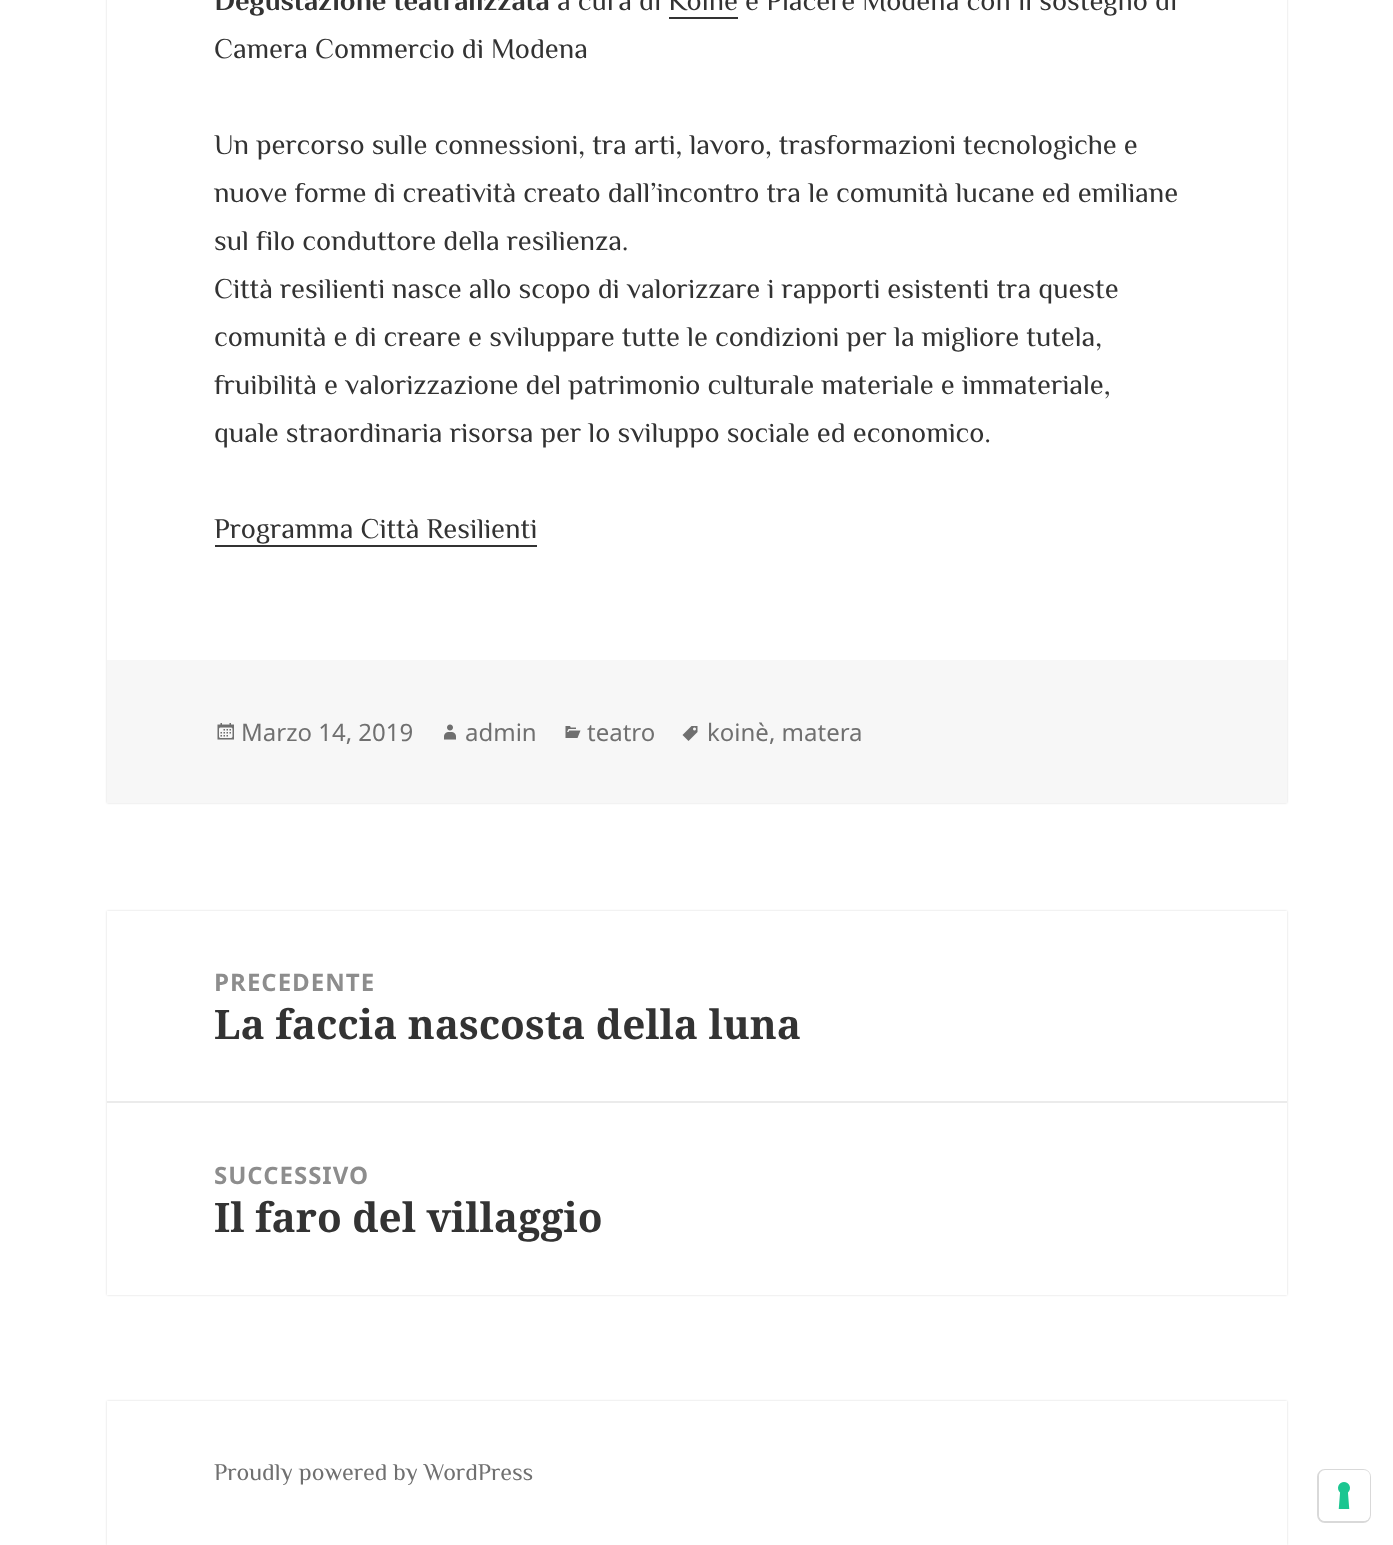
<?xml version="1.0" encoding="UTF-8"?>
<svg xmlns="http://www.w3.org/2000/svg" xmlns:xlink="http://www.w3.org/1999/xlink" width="1393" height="1545">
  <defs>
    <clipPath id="clip1"><path d="M 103 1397 h 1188 v 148 h -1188 z m 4 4 h 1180 v 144 h -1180 z" clip-rule="evenodd" /></clipPath>
  </defs>
  <rect width="100%" height="100%" fill="#ffffff" />
  <rect x="107" y="-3" width="1180" height="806" fill="#000000" fill-opacity="0.15" filter="blur(1px)" />
  <rect x="107" width="1180" height="660" fill="#ffffff" />
  <rect x="669" y="17" width="69" height="2" fill="#333333" />
  <rect x="215" y="545" width="322" height="2" fill="#333333" />
  <rect x="107" y="660" width="1180" height="143" fill="#f7f7f7" />
  <image x="217" y="723" width="17" height="17" xlink:href="image1.png" />
  <image x="444" y="724" width="12" height="16" xlink:href="image2.png" />
  <image x="565" y="726" width="16" height="12" xlink:href="image3.png" />
  <image x="682" y="726" width="16" height="15" xlink:href="image4.png" />
  <rect x="107" y="911" width="1180" height="384" fill="#000000" fill-opacity="0.15" filter="blur(1px)" />
  <rect x="107" y="911" width="1180" height="384" fill="#ffffff" />
  <rect x="107" y="1101" width="1180" height="2" fill="#ebebeb" />
  <g clip-path="url(#clip1)">
    <rect x="107" y="1401" width="1180" height="144" fill="#000000" fill-opacity="0.15" filter="blur(1px)" />
  </g>
  <rect x="1318" y="1470" width="52" height="52" rx="7" fill="none" stroke="#d9d9d9" stroke-width="2" />
  <rect x="1319" y="1470" width="51" height="51" rx="6" fill="#ffffff" />
  <image x="1338" y="1482" width="12" height="27" xlink:href="image5.png" />
  <text x="214" y="10" style="font-family: Philosopher; font-size: 28.5px; font-weight: bold; fill: #333333">Degustazione teatralizzata</text>
  <text x="557" y="10" style="font-family: Philosopher; font-size: 28.5px; fill: #333333">a cura di Koinè e Piacere Modena con il sostegno di</text>
  <text x="214" y="58" style="font-family: Philosopher; font-size: 28.5px; fill: #333333">Camera Commercio di Modena</text>
  <text x="214" y="154" style="font-family: Philosopher; font-size: 28.5px; fill: #333333">Un percorso sulle connessioni, tra arti, lavoro, trasformazioni tecnologiche e</text>
  <text x="214" y="202" style="font-family: Philosopher; font-size: 28.5px; fill: #333333">nuove forme di creatività creato dall’incontro tra le comunità lucane ed emiliane</text>
  <text x="214" y="250" style="font-family: Philosopher; font-size: 28.5px; fill: #333333">sul filo conduttore della resilienza.</text>
  <text x="214" y="298" style="font-family: Philosopher; font-size: 28.5px; fill: #333333">Città resilienti nasce allo scopo di valorizzare i rapporti esistenti tra queste</text>
  <text x="214" y="346" style="font-family: Philosopher; font-size: 28.5px; fill: #333333">comunità e di creare e sviluppare tutte le condizioni per la migliore tutela,</text>
  <text x="214" y="394" style="font-family: Philosopher; font-size: 28.5px; fill: #333333">fruibilità e valorizzazione del patrimonio culturale materiale e immateriale,</text>
  <text x="214" y="442" style="font-family: Philosopher; font-size: 28.5px; fill: #333333">quale straordinaria risorsa per lo sviluppo sociale ed economico.</text>
  <text x="214" y="538" style="font-family: Philosopher; font-size: 28.5px; fill: #333333">Programma Città Resilienti</text>
  <text x="241" y="741" style="font-family: Noto Sans; font-size: 24px; fill: #707070">Marzo 14, 2019</text>
  <text x="465" y="741" style="font-family: Noto Sans; font-size: 24px; fill: #707070">admin</text>
  <text x="587" y="741" style="font-family: Noto Sans; font-size: 24px; fill: #707070">teatro</text>
  <text x="707" y="741" style="font-family: Noto Sans; font-size: 24px; fill: #707070">koinè, matera</text>
  <text x="214" y="991" style="font-family: Noto Sans; font-size: 24px; font-weight: bold; letter-spacing: 1px; fill: #8d8d8d">PRECEDENTE</text>
  <text x="214" y="1039" style="font-family: Noto Serif; font-size: 40.5px; font-weight: bold; fill: #333333">La faccia nascosta della luna</text>
  <text x="214" y="1184" style="font-family: Noto Sans; font-size: 24px; font-weight: bold; letter-spacing: 1px; fill: #8d8d8d">SUCCESSIVO</text>
  <text x="214" y="1232" style="font-family: Noto Serif; font-size: 40.5px; font-weight: bold; fill: #333333">Il faro del villaggio</text>
  <text x="214" y="1480" style="font-family: Philosopher; font-size: 24px; fill: #707070">Proudly powered by WordPress</text>
</svg>
